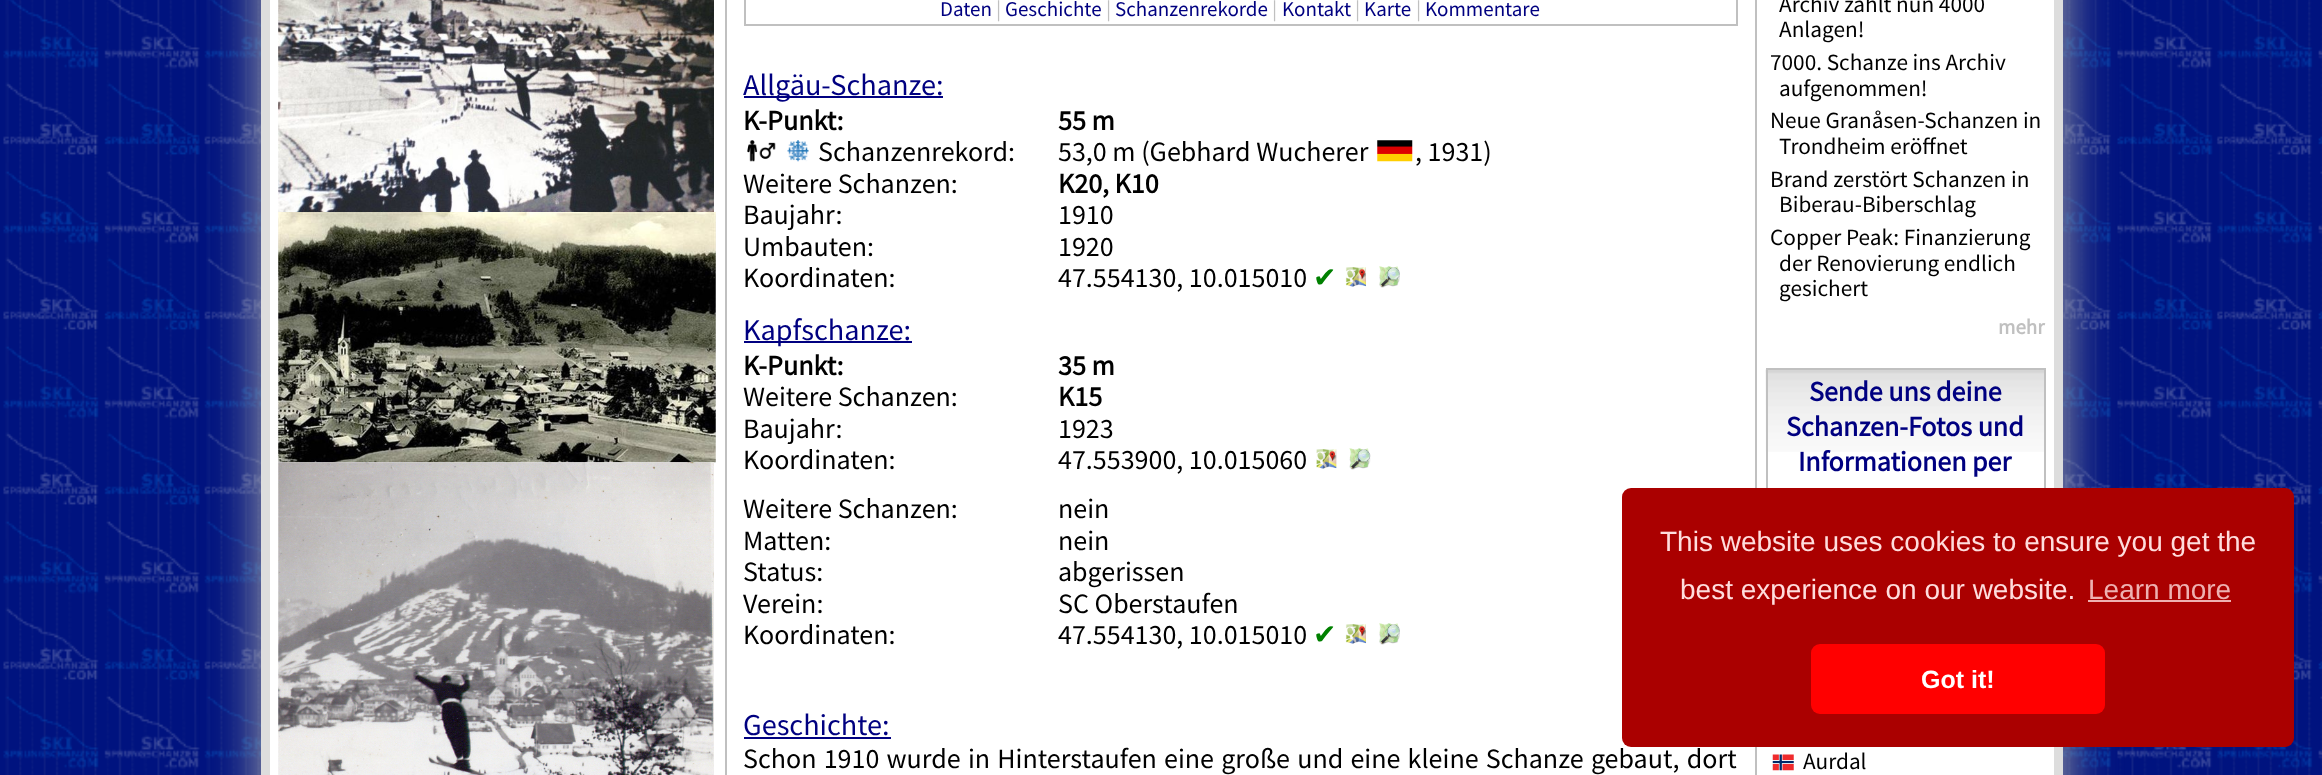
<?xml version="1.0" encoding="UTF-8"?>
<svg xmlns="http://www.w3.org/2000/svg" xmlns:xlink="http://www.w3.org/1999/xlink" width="2322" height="775">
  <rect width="100%" height="100%" fill="#ffffff" />
  <image x="0" y="0" width="2322" height="775" xlink:href="image1.png" />
  <rect x="261" y="-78" width="1802" height="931" fill="#aaaaaa" filter="blur(26px)" />
  <rect x="265.5" y="-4.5" width="1793" height="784" fill="#ffffff" stroke="#dddddd" stroke-width="9" />
  <image x="278" y="0" width="436" height="212" xlink:href="image2.png" />
  <image x="278" y="212" width="438" height="251" xlink:href="image3.png" />
  <image x="278" y="462" width="436" height="313" xlink:href="image4.png" />
  <rect x="1755" width="2" height="775" fill="#c0c0c0" />
  <rect x="725" width="2" height="775" fill="#c0c0c0" />
  <rect x="745" y="-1" width="992" height="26" fill="none" stroke="#c0c0c0" stroke-width="2" />
  <rect x="744" y="96" width="199" height="2" fill="#000080" />
  <image x="747" y="140" width="29" height="22" xlink:href="image5.png" />
  <image x="787" y="140" width="22" height="22" xlink:href="image6.png" />
  <image x="1377" y="140" width="36" height="22" xlink:href="image7.png" />
  <image x="1345" y="267" width="21" height="20" xlink:href="image8.png" />
  <image x="1379" y="266" width="21" height="22" xlink:href="image9.png" />
  <rect x="744" y="341" width="168" height="2" fill="#000080" />
  <image x="1316" y="449" width="21" height="20" xlink:href="image10.png" />
  <image x="1349" y="448" width="22" height="22" xlink:href="image11.png" />
  <image x="1345" y="624" width="21" height="20" xlink:href="image8.png" />
  <image x="1379" y="623" width="21" height="22" xlink:href="image9.png" />
  <rect x="744" y="737" width="147" height="2" fill="#000080" />
  <image x="1765" y="369" width="279" height="83" xlink:href="image12.png" />
  <rect x="1767" y="369" width="278" height="148" fill="none" stroke="#c0c0c0" stroke-width="2" />
  <image x="1772" y="754" width="22" height="17" xlink:href="image13.png" />
  <rect x="1622" y="488" width="672" height="259" rx="9" fill="#aa0000" />
  <rect x="2088" y="600" width="143" height="2" fill="#eeb1b1" />
  <rect x="1811" y="644" width="294" height="70" rx="9" fill="#ff0000" />
  <text x="940" y="16" style="font-family: Source Sans Pro; font-size: 21px; fill: #000080">Daten</text>
  <text x="996" y="16" style="font-family: Source Sans Pro; font-size: 21px; fill: #c0c0c0">|</text>
  <text x="1005" y="16" style="font-family: Source Sans Pro; font-size: 21px; fill: #000080">Geschichte</text>
  <text x="1106" y="16" style="font-family: Source Sans Pro; font-size: 21px; fill: #c0c0c0">|</text>
  <text x="1115" y="16" style="font-family: Source Sans Pro; font-size: 21px; fill: #000080">Schanzenrekorde</text>
  <text x="1272" y="16" style="font-family: Source Sans Pro; font-size: 21px; fill: #c0c0c0">|</text>
  <text x="1282" y="16" style="font-family: Source Sans Pro; font-size: 21px; fill: #000080">Kontakt</text>
  <text x="1355" y="16" style="font-family: Source Sans Pro; font-size: 21px; fill: #c0c0c0">|</text>
  <text x="1364" y="16" style="font-family: Source Sans Pro; font-size: 21px; fill: #000080">Karte</text>
  <text x="1416" y="16" style="font-family: Source Sans Pro; font-size: 21px; fill: #c0c0c0">|</text>
  <text x="1425" y="16" style="font-family: Source Sans Pro; font-size: 21px; fill: #000080">Kommentare</text>
  <text x="743" y="95" style="font-family: Source Sans Pro; font-size: 30.25px; fill: #000080">Allgäu-Schanze:</text>
  <text x="743" y="130" style="font-family: Source Sans Pro; font-size: 28px; font-weight: bold; fill: #000000">K-Punkt:</text>
  <text x="1058" y="130" style="font-family: Source Sans Pro; font-size: 28px; font-weight: bold; fill: #000000">55 m</text>
  <text x="818" y="161" style="font-family: Source Sans Pro; font-size: 28px; fill: #000000">Schanzenrekord:</text>
  <text x="1058" y="161" style="font-family: Source Sans Pro; font-size: 28px; fill: #000000">53,0 m (Gebhard Wucherer</text>
  <text x="1415" y="161" style="font-family: Source Sans Pro; font-size: 28px; fill: #000000">, 1931)</text>
  <text x="743" y="193" style="font-family: Source Sans Pro; font-size: 28px; fill: #000000">Weitere Schanzen:</text>
  <text x="1058" y="193" style="font-family: Source Sans Pro; font-size: 28px; font-weight: bold; fill: #000000">K20, K10</text>
  <text x="743" y="224" style="font-family: Source Sans Pro; font-size: 28px; fill: #000000">Baujahr:</text>
  <text x="1058" y="224" style="font-family: Source Sans Pro; font-size: 28px; fill: #000000">1910</text>
  <text x="743" y="256" style="font-family: Source Sans Pro; font-size: 28px; fill: #000000">Umbauten:</text>
  <text x="1058" y="256" style="font-family: Source Sans Pro; font-size: 28px; fill: #000000">1920</text>
  <text x="743" y="287" style="font-family: Source Sans Pro; font-size: 28px; fill: #000000">Koordinaten:</text>
  <text x="1058" y="287" style="font-family: Source Sans Pro; font-size: 28px; fill: #000000">47.554130, 10.015010</text>
  <text x="1313" y="287" style="font-family: DejaVu Sans; font-size: 28px; fill: #008000">✔</text>
  <text x="743" y="340" style="font-family: Source Sans Pro; font-size: 30.25px; fill: #000080">Kapfschanze:</text>
  <text x="743" y="375" style="font-family: Source Sans Pro; font-size: 28px; font-weight: bold; fill: #000000">K-Punkt:</text>
  <text x="1058" y="375" style="font-family: Source Sans Pro; font-size: 28px; font-weight: bold; fill: #000000">35 m</text>
  <text x="743" y="406" style="font-family: Source Sans Pro; font-size: 28px; fill: #000000">Weitere Schanzen:</text>
  <text x="1058" y="406" style="font-family: Source Sans Pro; font-size: 28px; font-weight: bold; fill: #000000">K15</text>
  <text x="743" y="438" style="font-family: Source Sans Pro; font-size: 28px; fill: #000000">Baujahr:</text>
  <text x="1058" y="438" style="font-family: Source Sans Pro; font-size: 28px; fill: #000000">1923</text>
  <text x="743" y="469" style="font-family: Source Sans Pro; font-size: 28px; fill: #000000">Koordinaten:</text>
  <text x="1058" y="469" style="font-family: Source Sans Pro; font-size: 28px; fill: #000000">47.553900, 10.015060</text>
  <text x="743" y="518" style="font-family: Source Sans Pro; font-size: 28px; fill: #000000">Weitere Schanzen:</text>
  <text x="1058" y="518" style="font-family: Source Sans Pro; font-size: 28px; fill: #000000">nein</text>
  <text x="743" y="550" style="font-family: Source Sans Pro; font-size: 28px; fill: #000000">Matten:</text>
  <text x="1058" y="550" style="font-family: Source Sans Pro; font-size: 28px; fill: #000000">nein</text>
  <text x="743" y="581" style="font-family: Source Sans Pro; font-size: 28px; fill: #000000">Status:</text>
  <text x="1058" y="581" style="font-family: Source Sans Pro; font-size: 28px; fill: #000000">abgerissen</text>
  <text x="743" y="613" style="font-family: Source Sans Pro; font-size: 28px; fill: #000000">Verein:</text>
  <text x="1058" y="613" style="font-family: Source Sans Pro; font-size: 28px; fill: #000000">SC Oberstaufen</text>
  <text x="743" y="644" style="font-family: Source Sans Pro; font-size: 28px; fill: #000000">Koordinaten:</text>
  <text x="1058" y="644" style="font-family: Source Sans Pro; font-size: 28px; fill: #000000">47.554130, 10.015010</text>
  <text x="1313" y="644" style="font-family: DejaVu Sans; font-size: 28px; fill: #008000">✔</text>
  <text x="743" y="735" style="font-family: Source Sans Pro; font-size: 30.25px; fill: #000080">Geschichte:</text>
  <text x="743" y="768" word-spacing="1.6" style="font-family: Source Sans Pro; font-size: 28px; fill: #000000">Schon 1910 wurde in Hinterstaufen eine große und eine kleine Schanze gebaut, dort</text>
  <text x="1779" y="12" style="font-family: Source Sans Pro; font-size: 23.25px; fill: #000000">Archiv zählt nun 4000</text>
  <text x="1779" y="37" style="font-family: Source Sans Pro; font-size: 23.25px; fill: #000000">Anlagen!</text>
  <text x="1770" y="70" style="font-family: Source Sans Pro; font-size: 23.25px; fill: #000000">7000. Schanze ins Archiv</text>
  <text x="1779" y="96" style="font-family: Source Sans Pro; font-size: 23.25px; fill: #000000">aufgenommen!</text>
  <text x="1770" y="128" style="font-family: Source Sans Pro; font-size: 23.25px; fill: #000000">Neue Granåsen-Schanzen in</text>
  <text x="1779" y="154" style="font-family: Source Sans Pro; font-size: 23.25px; fill: #000000">Trondheim eröffnet</text>
  <text x="1770" y="187" style="font-family: Source Sans Pro; font-size: 23.25px; fill: #000000">Brand zerstört Schanzen in</text>
  <text x="1779" y="212" style="font-family: Source Sans Pro; font-size: 23.25px; fill: #000000">Biberau-Biberschlag</text>
  <text x="1770" y="245" style="font-family: Source Sans Pro; font-size: 23.25px; fill: #000000">Copper Peak: Finanzierung</text>
  <text x="1779" y="271" style="font-family: Source Sans Pro; font-size: 23.25px; fill: #000000">der Renovierung endlich</text>
  <text x="1779" y="296" style="font-family: Source Sans Pro; font-size: 23.25px; fill: #000000">gesichert</text>
  <text x="1998" y="334" style="font-family: Source Sans Pro; font-size: 21px; font-weight: bold; fill: #c0c0c0">mehr</text>
  <text x="1809" y="401" style="font-family: Source Sans Pro; font-size: 28px; font-weight: bold; fill: #000080">Sende uns deine</text>
  <text x="1786" y="436" style="font-family: Source Sans Pro; font-size: 28px; font-weight: bold; fill: #000080">Schanzen-Fotos und</text>
  <text x="1798" y="471" style="font-family: Source Sans Pro; font-size: 28px; font-weight: bold; fill: #000080">Informationen per</text>
  <text x="1803" y="769" style="font-family: Source Sans Pro; font-size: 23.25px; fill: #000000">Aurdal</text>
  <text x="1660" y="551" style="font-family: Liberation Sans; font-size: 28px; fill: #ffdddd">This website uses cookies to ensure you get the</text>
  <text x="1680" y="599" style="font-family: Liberation Sans; font-size: 28px; fill: #ffdddd">best experience on our website.</text>
  <text x="2088" y="599" style="font-family: Liberation Sans; font-size: 28px; fill: #eeb1b1">Learn more</text>
  <text x="1921" y="688" style="font-family: Liberation Sans; font-size: 25px; font-weight: bold; fill: #ffffff">Got it!</text>
</svg>
